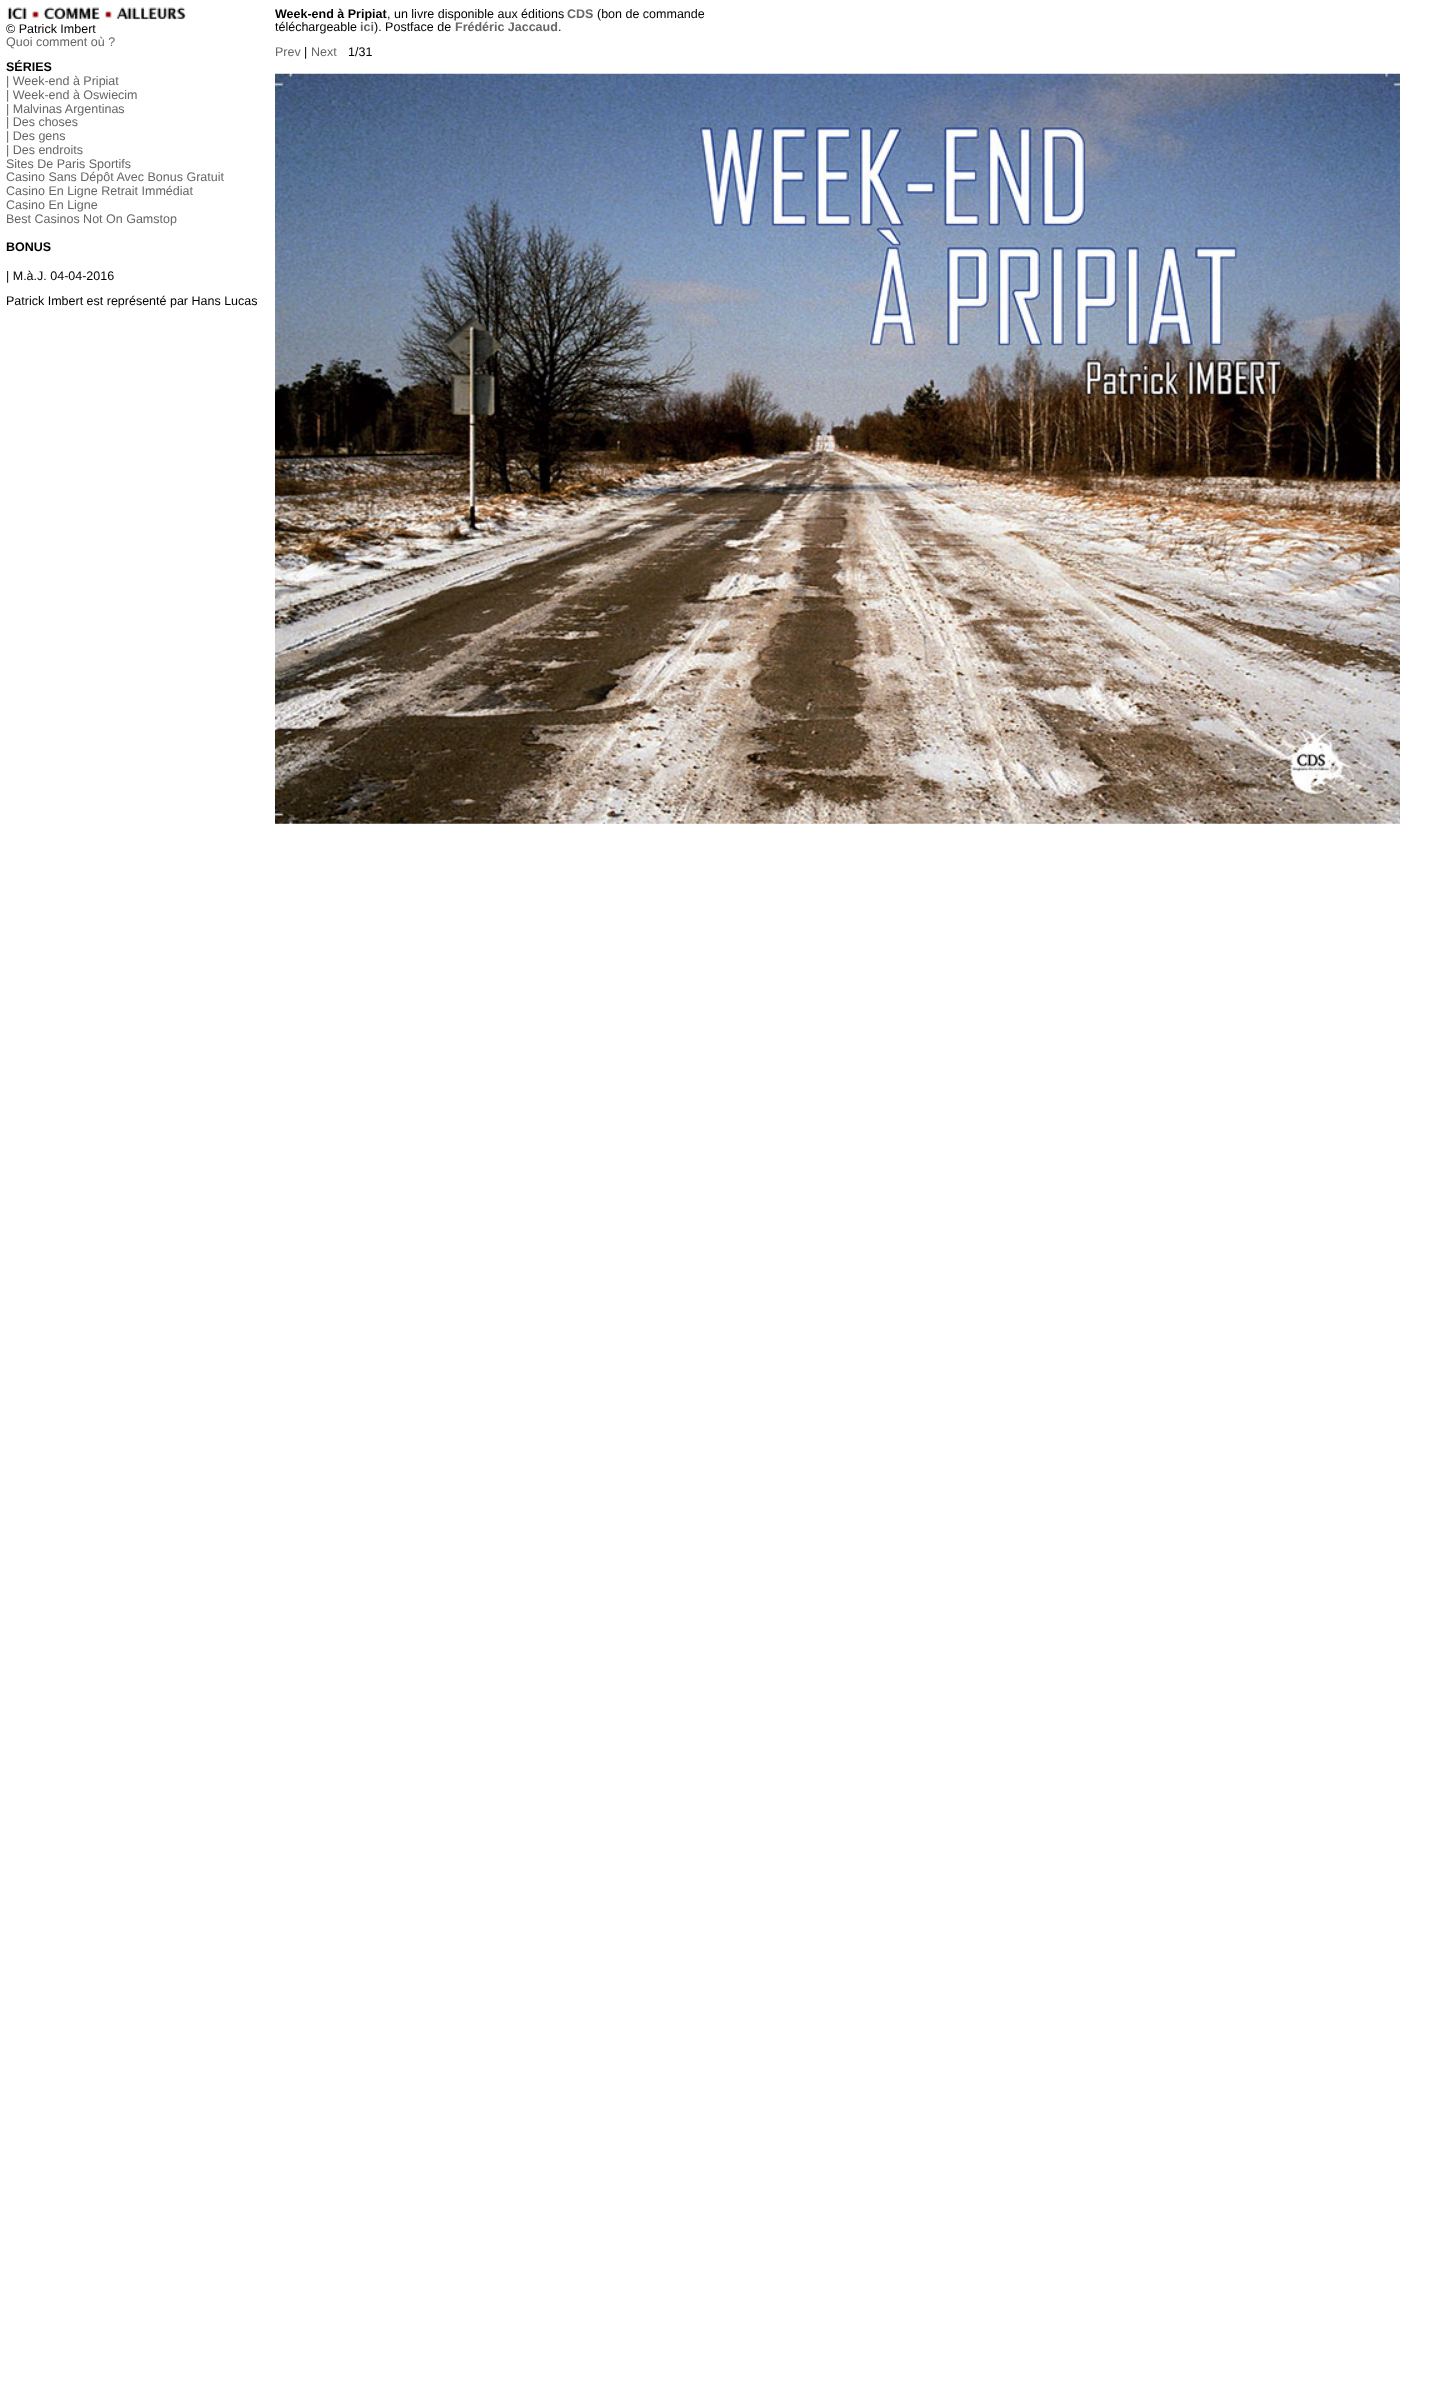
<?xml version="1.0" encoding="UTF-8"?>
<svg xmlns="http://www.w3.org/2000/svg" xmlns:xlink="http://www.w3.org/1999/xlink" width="1441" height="2387">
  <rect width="100%" height="100%" fill="#ffffff" />
  <image x="7" y="7" width="179" height="13" xlink:href="image1.png" />
  <image x="275" y="73" width="1125" height="751" xlink:href="image2.png" />
  <text x="6" y="33" style="font-family: Liberation Sans; font-size: 12.5px; fill: #000000">© Patrick Imbert</text>
  <text x="6" y="46" style="font-family: Liberation Sans; font-size: 12.5px; fill: #666666">Quoi comment où ?</text>
  <text x="6" y="71" style="font-family: Liberation Sans; font-size: 12.5px; font-weight: bold; fill: #000000">SÉRIES</text>
  <text x="6" y="85" style="font-family: Liberation Sans; font-size: 12.5px; fill: #666666">| Week-end à Pripiat</text>
  <text x="6" y="99" style="font-family: Liberation Sans; font-size: 12.5px; fill: #666666">| Week-end à Oswiecim</text>
  <text x="6" y="113" style="font-family: Liberation Sans; font-size: 12.5px; fill: #666666">| Malvinas Argentinas</text>
  <text x="6" y="126" style="font-family: Liberation Sans; font-size: 12.5px; fill: #666666">| Des choses</text>
  <text x="6" y="140" style="font-family: Liberation Sans; font-size: 12.5px; fill: #666666">| Des gens</text>
  <text x="6" y="154" style="font-family: Liberation Sans; font-size: 12.5px; fill: #666666">| Des endroits</text>
  <text x="6" y="168" style="font-family: Liberation Sans; font-size: 12.5px; fill: #666666">Sites De Paris Sportifs</text>
  <text x="6" y="181" style="font-family: Liberation Sans; font-size: 12.5px; fill: #666666">Casino Sans Dépôt Avec Bonus Gratuit</text>
  <text x="6" y="195" style="font-family: Liberation Sans; font-size: 12.5px; fill: #666666">Casino En Ligne Retrait Immédiat</text>
  <text x="6" y="209" style="font-family: Liberation Sans; font-size: 12.5px; fill: #666666">Casino En Ligne</text>
  <text x="6" y="223" style="font-family: Liberation Sans; font-size: 12.5px; fill: #666666">Best Casinos Not On Gamstop</text>
  <text x="6" y="251" style="font-family: Liberation Sans; font-size: 12.5px; font-weight: bold; fill: #000000">BONUS</text>
  <text x="6" y="280" style="font-family: Liberation Sans; font-size: 12.5px; fill: #000000">| M.à.J. 04-04-2016</text>
  <text x="6" y="305" style="font-family: Liberation Sans; font-size: 12.5px; fill: #000000">Patrick Imbert est représenté par Hans Lucas</text>
  <text x="275" y="18" style="font-family: Liberation Sans; font-size: 12.5px; font-weight: bold; fill: #000000">Week-end à Pripiat</text>
  <text x="387" y="18" style="font-family: Liberation Sans; font-size: 12.5px; fill: #000000">, un livre disponible aux éditions</text>
  <text x="567" y="18" style="font-family: Liberation Sans; font-size: 12.5px; font-weight: bold; fill: #666666">CDS</text>
  <text x="597" y="18" style="font-family: Liberation Sans; font-size: 12.5px; fill: #000000">(bon de commande</text>
  <text x="275" y="31" style="font-family: Liberation Sans; font-size: 12.5px; fill: #000000">téléchargeable</text>
  <text x="360" y="31" style="font-family: Liberation Sans; font-size: 12.5px; font-weight: bold; fill: #666666">ici</text>
  <text x="374" y="31" style="font-family: Liberation Sans; font-size: 12.5px; fill: #000000">). Postface de</text>
  <text x="455" y="31" style="font-family: Liberation Sans; font-size: 12.5px; font-weight: bold; fill: #666666">Frédéric Jaccaud</text>
  <text x="558" y="31" style="font-family: Liberation Sans; font-size: 12.5px; fill: #000000">.</text>
  <text x="275" y="56" style="font-family: Liberation Sans; font-size: 12.5px; fill: #666666">Prev</text>
  <text x="304" y="56" style="font-family: Liberation Sans; font-size: 12.5px; fill: #000000">|</text>
  <text x="311" y="56" style="font-family: Liberation Sans; font-size: 12.5px; fill: #666666">Next</text>
  <text x="348" y="56" style="font-family: Liberation Sans; font-size: 12.5px; fill: #000000">1/31</text>
</svg>
